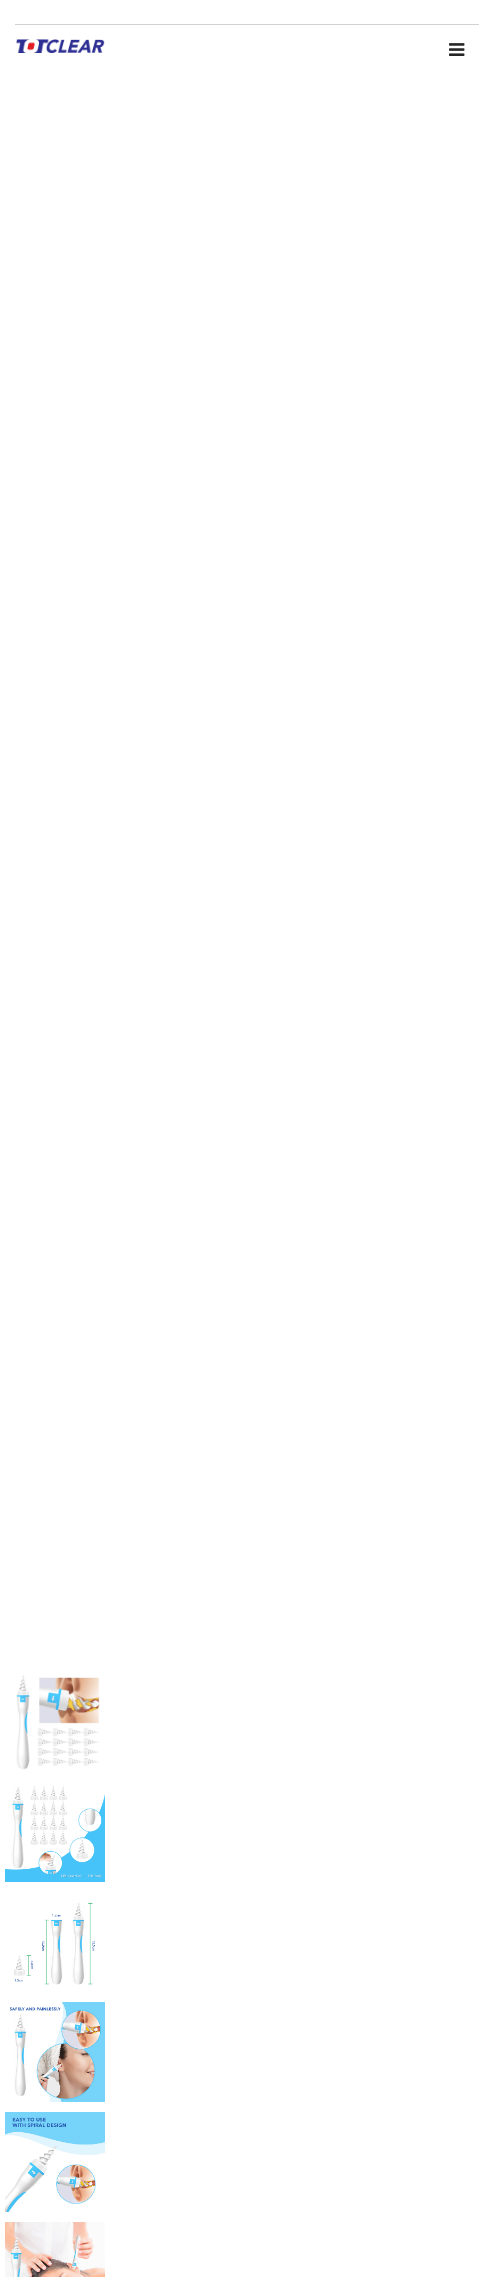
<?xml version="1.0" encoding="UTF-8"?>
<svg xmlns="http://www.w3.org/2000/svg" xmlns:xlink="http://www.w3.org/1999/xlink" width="494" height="2277">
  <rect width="100%" height="100%" fill="#ffffff" />
  <rect x="15" y="24" width="464" height="1" fill="#d2d2d2" />
  <image x="16" y="39" width="89" height="14" xlink:href="image1.png" />
  <image x="449" y="43" width="16" height="13" xlink:href="image2.png" />
  <image x="16" y="1675" width="84" height="95" xlink:href="image3.png" />
  <image x="5" y="1786" width="100" height="96" xlink:href="image4.png" />
  <image x="14" y="1902" width="81" height="83" xlink:href="image5.png" />
  <image x="10" y="2002" width="95" height="100" xlink:href="image6.png" />
  <image x="5" y="2112" width="100" height="100" xlink:href="image7.png" />
  <image x="5" y="2222" width="100" height="55" xlink:href="image8.png" />
</svg>
